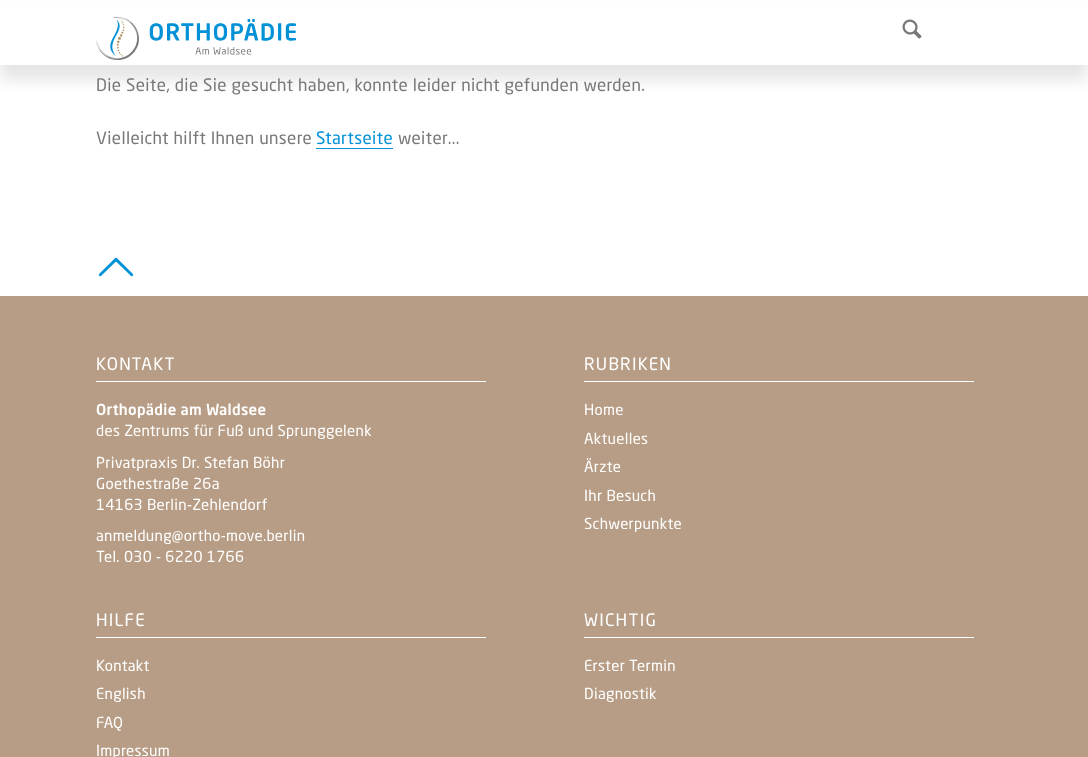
<?xml version="1.0" encoding="UTF-8"?>
<svg xmlns="http://www.w3.org/2000/svg" xmlns:xlink="http://www.w3.org/1999/xlink" width="1088" height="757">
  <rect width="100%" height="100%" fill="#ffffff" />
  <rect y="15" width="1088" height="65" fill="#000000" fill-opacity="0.1" filter="blur(7.5px)" />
  <rect y="5" width="1088" height="60" fill="#ffffff" />
  <image x="96" y="17" width="200" height="43" xlink:href="image1.png" />
  <image x="902" y="19" width="20" height="20" xlink:href="image2.png" />
  <rect x="316" y="148" width="77" height="1" fill="#0091d7" />
  <rect y="296" width="1088" height="461" fill="#b79d85" />
  <image x="98" y="257" width="36" height="20" xlink:href="image3.png" />
  <rect x="96" y="381" width="390" height="1" fill="#ffffff" />
  <rect x="584" y="381" width="390" height="1" fill="#ffffff" />
  <rect x="96" y="637" width="390" height="1" fill="#ffffff" />
  <rect x="584" y="637" width="390" height="1" fill="#ffffff" />
  <text x="96" y="91" style="font-family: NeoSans; font-size: 17px; letter-spacing: 0.35px; fill: #787878">Die Seite, die Sie gesucht haben, konnte leider nicht gefunden werden.</text>
  <text x="96" y="144" style="font-family: NeoSans; font-size: 17px; letter-spacing: 0.35px; fill: #787878">Vielleicht hilft Ihnen unsere</text>
  <text x="316" y="144" style="font-family: NeoSans; font-size: 17px; letter-spacing: 0.35px; fill: #0091d7">Startseite</text>
  <text x="398" y="144" style="font-family: NeoSans; font-size: 17px; letter-spacing: 0.35px; fill: #787878">weiter...</text>
  <text x="96" y="370" style="font-family: NeoSans; font-size: 17px; letter-spacing: 1.25px; fill: #ffffff">KONTAKT</text>
  <text x="96" y="415" style="font-family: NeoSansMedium; font-size: 15px; font-weight: 500; letter-spacing: 0.3px; fill: #ffffff">Orthopädie am Waldsee</text>
  <text x="96" y="436" style="font-family: NeoSans; font-size: 15px; letter-spacing: 0.3px; fill: #ffffff">des Zentrums für Fuß und Sprunggelenk</text>
  <text x="96" y="468" style="font-family: NeoSans; font-size: 15px; letter-spacing: 0.3px; fill: #ffffff">Privatpraxis Dr. Stefan Böhr</text>
  <text x="96" y="489" style="font-family: NeoSans; font-size: 15px; letter-spacing: 0.3px; fill: #ffffff">Goethestraße 26a</text>
  <text x="96" y="510" style="font-family: NeoSans; font-size: 15px; letter-spacing: 0.3px; fill: #ffffff">14163 Berlin-Zehlendorf</text>
  <text x="96" y="541" style="font-family: NeoSans; font-size: 15px; letter-spacing: 0.3px; fill: #ffffff">anmeldung@ortho-move.berlin</text>
  <text x="96" y="562" style="font-family: NeoSans; font-size: 15px; letter-spacing: 0.3px; fill: #ffffff">Tel. 030 - 6220 1766</text>
  <text x="584" y="370" style="font-family: NeoSans; font-size: 17px; letter-spacing: 1.25px; fill: #ffffff">RUBRIKEN</text>
  <text x="584" y="415" style="font-family: NeoSans; font-size: 15px; letter-spacing: 0.3px; fill: #ffffff">Home</text>
  <text x="584" y="444" style="font-family: NeoSans; font-size: 15px; letter-spacing: 0.3px; fill: #ffffff">Aktuelles</text>
  <text x="584" y="472" style="font-family: NeoSans; font-size: 15px; letter-spacing: 0.3px; fill: #ffffff">Ärzte</text>
  <text x="584" y="501" style="font-family: NeoSans; font-size: 15px; letter-spacing: 0.3px; fill: #ffffff">Ihr Besuch</text>
  <text x="584" y="529" style="font-family: NeoSans; font-size: 15px; letter-spacing: 0.3px; fill: #ffffff">Schwerpunkte</text>
  <text x="96" y="626" style="font-family: NeoSans; font-size: 17px; letter-spacing: 1.25px; fill: #ffffff">HILFE</text>
  <text x="96" y="671" style="font-family: NeoSans; font-size: 15px; letter-spacing: 0.3px; fill: #ffffff">Kontakt</text>
  <text x="96" y="699" style="font-family: NeoSans; font-size: 15px; letter-spacing: 0.3px; fill: #ffffff">English</text>
  <text x="96" y="728" style="font-family: NeoSans; font-size: 15px; letter-spacing: 0.3px; fill: #ffffff">FAQ</text>
  <text x="96" y="756" style="font-family: NeoSans; font-size: 15px; letter-spacing: 0.3px; fill: #ffffff">Impressum</text>
  <text x="584" y="626" style="font-family: NeoSans; font-size: 17px; letter-spacing: 1.25px; fill: #ffffff">WICHTIG</text>
  <text x="584" y="671" style="font-family: NeoSans; font-size: 15px; letter-spacing: 0.3px; fill: #ffffff">Erster Termin</text>
  <text x="584" y="699" style="font-family: NeoSans; font-size: 15px; letter-spacing: 0.3px; fill: #ffffff">Diagnostik</text>
</svg>
